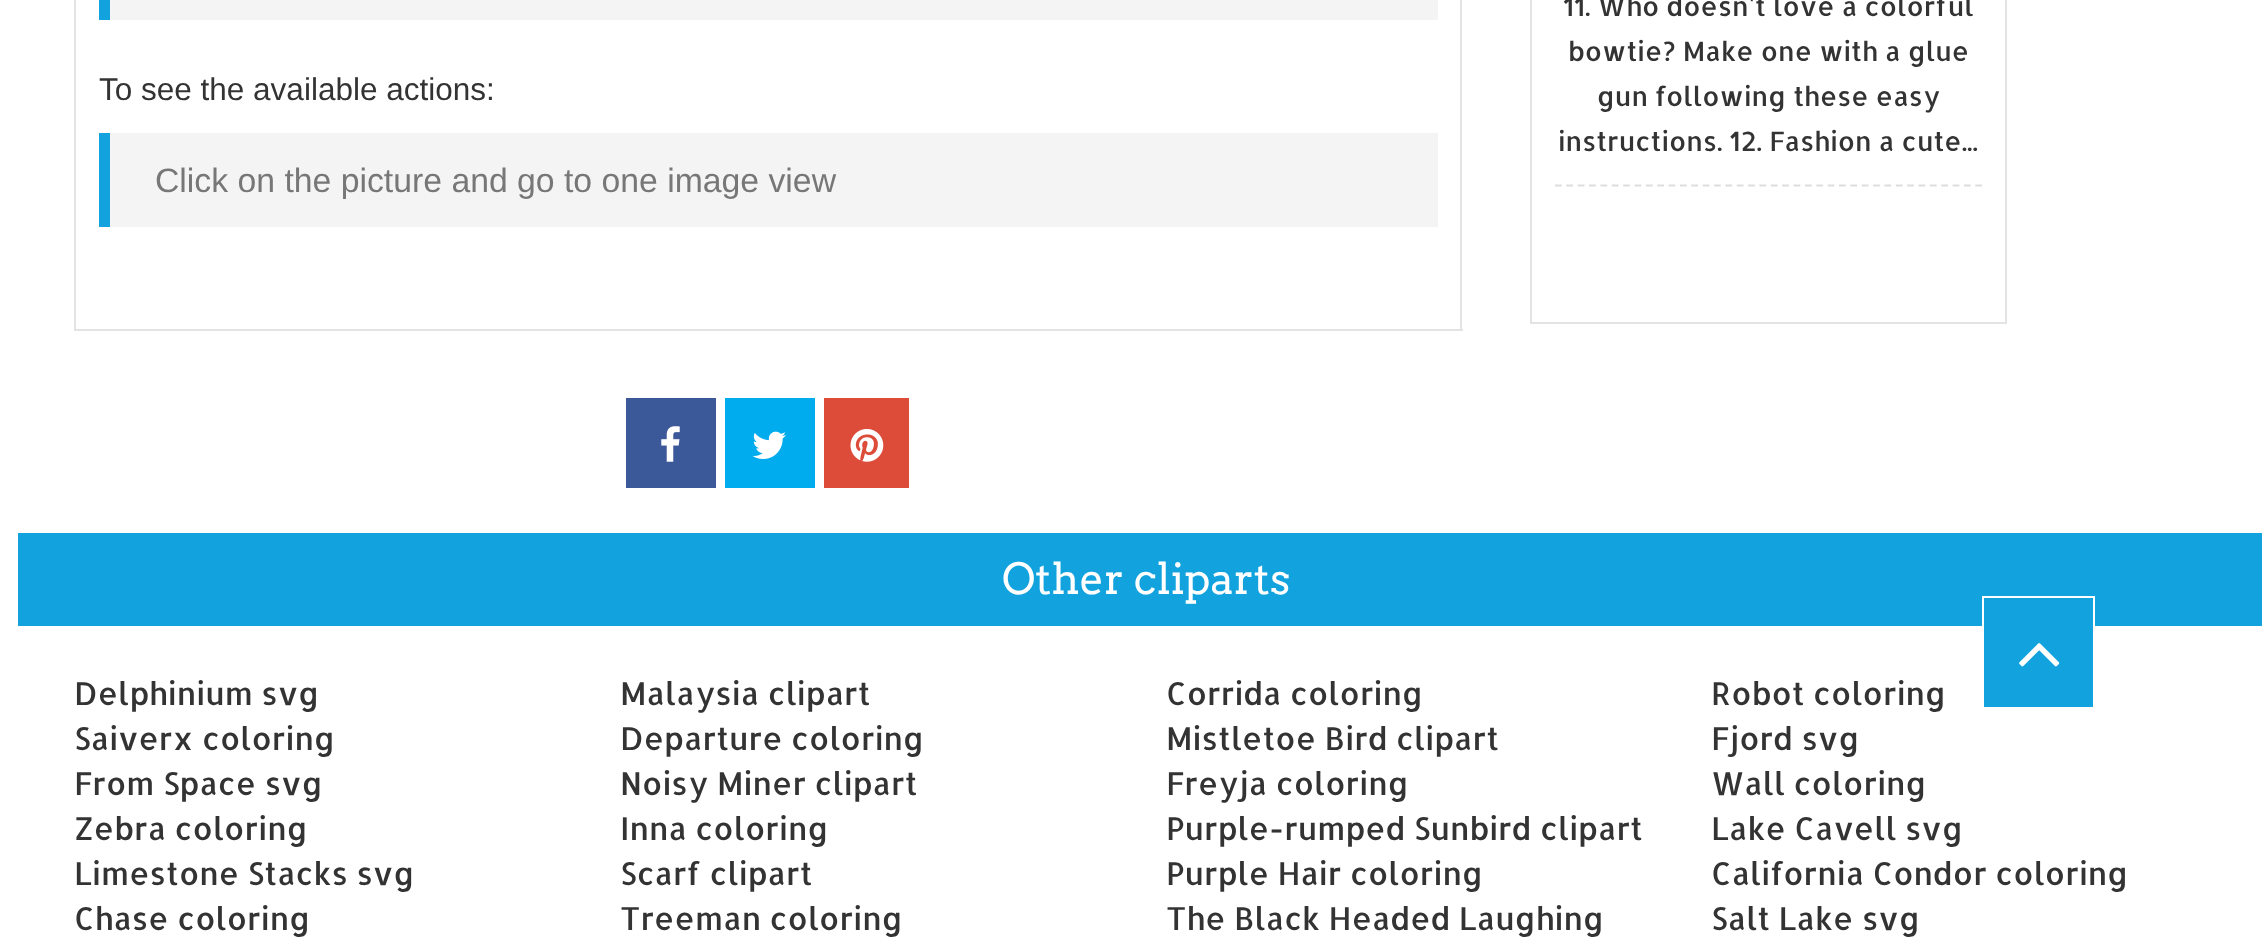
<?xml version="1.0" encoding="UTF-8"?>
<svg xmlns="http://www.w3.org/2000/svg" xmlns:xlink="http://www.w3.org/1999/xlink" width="2262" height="943">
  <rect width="100%" height="100%" fill="#ffffff" />
  <rect x="1460" width="2" height="331" fill="#e3e3e3" />
  <rect x="74" y="329" width="1389" height="2" fill="#e3e3e3" />
  <rect x="74" width="2" height="331" fill="#e3e3e3" />
  <rect x="110" width="1328" height="20" fill="#f4f4f4" />
  <rect x="99" width="11" height="20" fill="#12a3df" />
  <rect x="110" y="133" width="1328" height="94" fill="#f4f4f4" />
  <rect x="99" y="133" width="11" height="94" fill="#12a3df" />
  <rect x="626" y="398" width="90" height="90" fill="#3b5998" />
  <image x="661" y="426" width="19" height="36" xlink:href="image1.png" />
  <rect x="725" y="398" width="90" height="90" fill="#00acee" />
  <image x="752" y="431" width="34" height="28" xlink:href="image2.png" />
  <rect x="824" y="398" width="85" height="90" fill="#dd4b39" />
  <image x="850" y="428" width="34" height="34" xlink:href="image3.png" />
  <rect x="2005" width="2" height="324" fill="#e3e3e3" />
  <rect x="1530" y="322" width="477" height="2" fill="#e3e3e3" />
  <rect x="1530" width="2" height="324" fill="#e3e3e3" />
  <path d="M 1555 185.5 h 427" fill="none" stroke="#dddddd" stroke-width="2.2" stroke-dasharray="6.75 4.61" />
  <rect x="18" y="533" width="2244" height="93" fill="#12a3df" />
  <rect x="1984" y="626" width="109" height="81" fill="#12a3df" />
  <rect x="1983" y="597" width="111" height="111" fill="none" stroke="#ffffff" stroke-width="2" />
  <image x="2019" y="643" width="41" height="24" xlink:href="image4.png" />
  <text x="99" y="100" style="font-family: Liberation Sans; font-size: 31.5px; fill: #333333">To see the available actions:</text>
  <text x="155" y="192" style="font-family: Liberation Sans; font-size: 33.75px; fill: #777777">Click on the picture and go to one image view</text>
  <text x="1563" y="16" style="font-family: Allerta; font-size: 26.75px; fill: #333333">11. Who doesn't love a colorful</text>
  <text x="1568" y="61" style="font-family: Allerta; font-size: 26.75px; fill: #333333">bowtie? Make one with a glue</text>
  <text x="1597" y="106" style="font-family: Allerta; font-size: 26.75px; fill: #333333">gun following these easy</text>
  <text x="1558" y="151" style="font-family: Allerta; font-size: 26.75px; fill: #333333">instructions. 12. Fashion a cute...</text>
  <text x="1002" y="594" style="font-family: Arvo; font-size: 42.75px; fill: #ffffff">Other cliparts</text>
  <text x="74" y="705" style="font-family: Allerta; font-size: 31.5px; fill: #333333">Delphinium svg</text>
  <text x="620" y="705" style="font-family: Allerta; font-size: 31.5px; fill: #333333">Malaysia clipart</text>
  <text x="1166" y="705" style="font-family: Allerta; font-size: 31.5px; fill: #333333">Corrida coloring</text>
  <text x="1711" y="705" style="font-family: Allerta; font-size: 31.5px; fill: #333333">Robot coloring</text>
  <text x="74" y="750" style="font-family: Allerta; font-size: 31.5px; fill: #333333">Saiverx coloring</text>
  <text x="620" y="750" style="font-family: Allerta; font-size: 31.5px; fill: #333333">Departure coloring</text>
  <text x="1166" y="750" style="font-family: Allerta; font-size: 31.5px; fill: #333333">Mistletoe Bird clipart</text>
  <text x="1711" y="750" style="font-family: Allerta; font-size: 31.5px; fill: #333333">Fjord svg</text>
  <text x="74" y="795" style="font-family: Allerta; font-size: 31.5px; fill: #333333">From Space svg</text>
  <text x="620" y="795" style="font-family: Allerta; font-size: 31.5px; fill: #333333">Noisy Miner clipart</text>
  <text x="1166" y="795" style="font-family: Allerta; font-size: 31.5px; fill: #333333">Freyja coloring</text>
  <text x="1711" y="795" style="font-family: Allerta; font-size: 31.5px; fill: #333333">Wall coloring</text>
  <text x="74" y="840" style="font-family: Allerta; font-size: 31.5px; fill: #333333">Zebra coloring</text>
  <text x="620" y="840" style="font-family: Allerta; font-size: 31.5px; fill: #333333">Inna coloring</text>
  <text x="1166" y="840" style="font-family: Allerta; font-size: 31.5px; fill: #333333">Purple-rumped Sunbird clipart</text>
  <text x="1711" y="840" style="font-family: Allerta; font-size: 31.5px; fill: #333333">Lake Cavell svg</text>
  <text x="74" y="885" style="font-family: Allerta; font-size: 31.5px; fill: #333333">Limestone Stacks svg</text>
  <text x="620" y="885" style="font-family: Allerta; font-size: 31.5px; fill: #333333">Scarf clipart</text>
  <text x="1166" y="885" style="font-family: Allerta; font-size: 31.5px; fill: #333333">Purple Hair coloring</text>
  <text x="1711" y="885" style="font-family: Allerta; font-size: 31.5px; fill: #333333">California Condor coloring</text>
  <text x="74" y="930" style="font-family: Allerta; font-size: 31.5px; fill: #333333">Chase coloring</text>
  <text x="620" y="930" style="font-family: Allerta; font-size: 31.5px; fill: #333333">Treeman coloring</text>
  <text x="1166" y="930" style="font-family: Allerta; font-size: 31.5px; fill: #333333">The Black Headed Laughing</text>
  <text x="1711" y="930" style="font-family: Allerta; font-size: 31.5px; fill: #333333">Salt Lake svg</text>
</svg>
